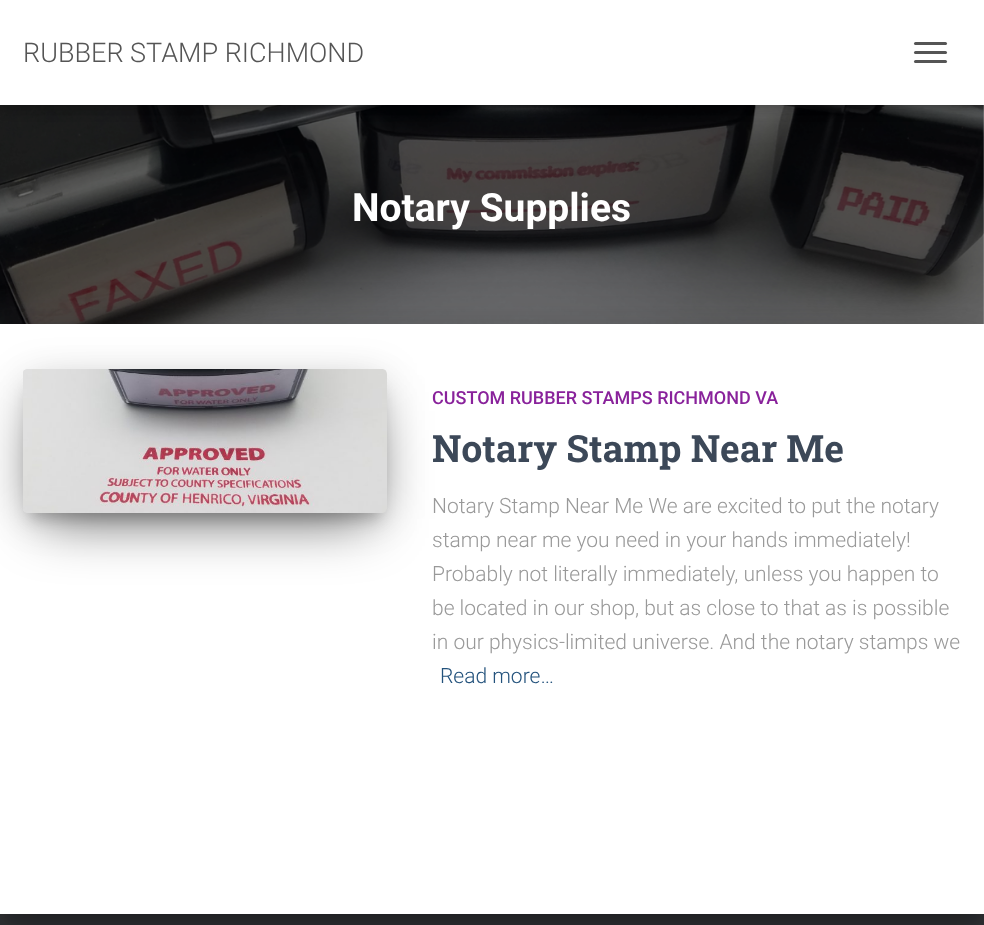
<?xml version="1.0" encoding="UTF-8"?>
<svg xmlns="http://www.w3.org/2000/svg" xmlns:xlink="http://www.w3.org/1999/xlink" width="984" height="925">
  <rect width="100%" height="100%" fill="#ffffff" />
  <image x="0" y="105" width="984" height="219" xlink:href="image1.png" />
  <rect x="3" y="9" width="978" height="99" fill="#000000" fill-opacity="0.1" filter="blur(4px)" />
  <rect y="2" width="984" height="105" fill="#000000" fill-opacity="0.12" filter="blur(7.5px)" />
  <rect x="9" y="11" width="966" height="87" fill="#000000" fill-opacity="0.42" filter="blur(7.5px)" />
  <rect width="984" height="105" fill="#ffffff" />
  <rect x="914" y="42" width="33" height="3" rx="1.5" fill="#555555" />
  <rect x="914" y="51" width="33" height="3" rx="1.5" fill="#555555" />
  <rect x="914" y="60" width="33" height="3" rx="1.5" fill="#555555" />
  <rect y="914" width="984" height="11" fill="#323437" />
  <rect x="8" y="344" width="969" height="574" fill="#000000" fill-opacity="0.2" filter="blur(7.5px)" />
  <rect x="-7" y="326" width="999" height="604" fill="#000000" fill-opacity="0.12" filter="blur(22.5px)" />
  <rect x="-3" y="345" width="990" height="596" fill="#000000" fill-opacity="0.14" filter="blur(18px)" />
  <rect y="324" width="984" height="590" fill="#ffffff" />
  <rect x="30" y="389" width="350" height="129" fill="#000000" fill-opacity="0.2" filter="blur(7.5px)" />
  <rect x="23" y="375" width="364" height="144" rx="5" fill="#000000" fill-opacity="0.12" filter="blur(19px)" />
  <rect x="41" y="411" width="328" height="108" fill="#000000" fill-opacity="0.56" filter="blur(28.5px)" />
  <image x="23" y="369" width="364" height="144" xlink:href="image2.png" />
  <text x="23" y="62" style="font-family: Roboto; font-size: 27px; font-weight: 300; fill: #555555">RUBBER STAMP RICHMOND</text>
  <text x="352" y="221" style="font-family: Roboto; font-size: 39px; font-weight: bold; fill: #ffffff">Notary Supplies</text>
  <text x="432" y="404" style="font-family: Roboto; font-size: 18px; font-weight: 500; fill: #89229b">CUSTOM RUBBER STAMPS RICHMOND VA</text>
  <text x="432" y="462" style="font-family: Roboto Slab; font-size: 37.5px; font-weight: bold; fill: #3c4858">Notary Stamp Near Me</text>
  <text x="432" y="513" style="font-family: Roboto; font-size: 21px; font-weight: 300; fill: #999999">Notary Stamp Near Me We are excited to put the notary</text>
  <text x="432" y="547" style="font-family: Roboto; font-size: 21px; font-weight: 300; fill: #999999">stamp near me you need in your hands immediately!</text>
  <text x="432" y="581" style="font-family: Roboto; font-size: 21px; font-weight: 300; fill: #999999">Probably not literally immediately, unless you happen to</text>
  <text x="432" y="615" style="font-family: Roboto; font-size: 21px; font-weight: 300; fill: #999999">be located in our shop, but as close to that as is possible</text>
  <text x="432" y="649" style="font-family: Roboto; font-size: 21px; font-weight: 300; fill: #999999">in our physics-limited universe. And the notary stamps we</text>
  <text x="440" y="683" style="font-family: Roboto; font-size: 21px; font-weight: 300; fill: #23527c">Read more…</text>
</svg>
